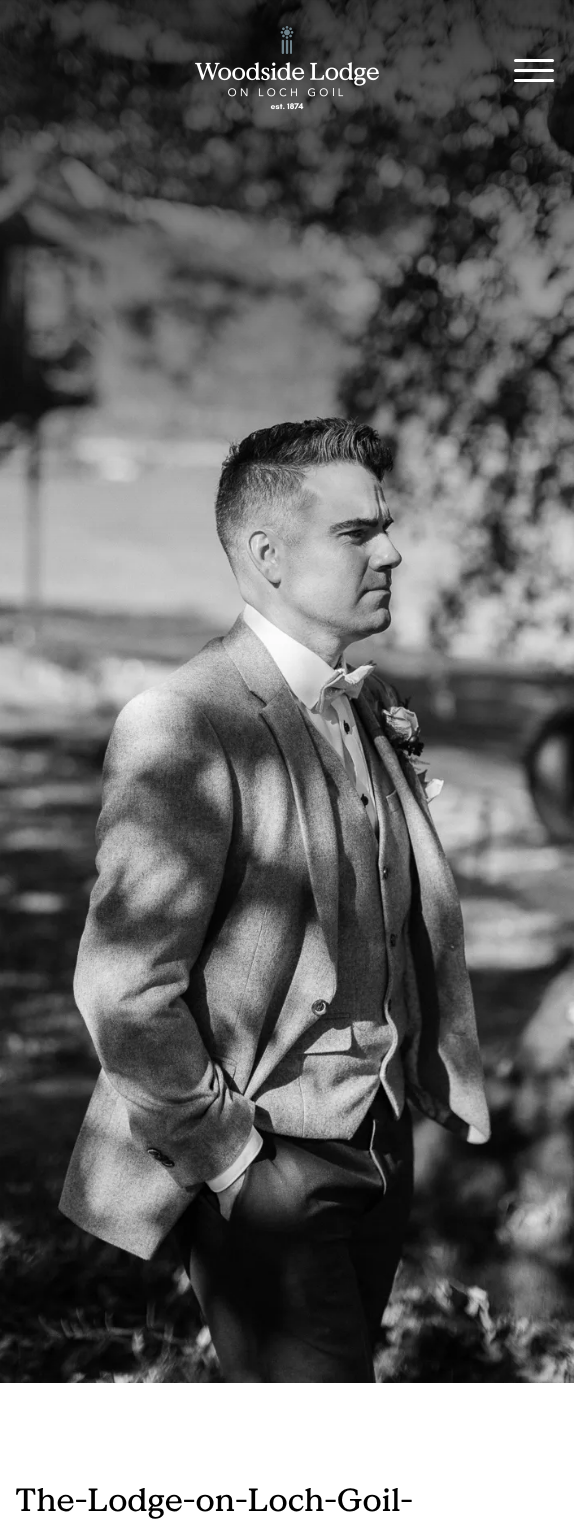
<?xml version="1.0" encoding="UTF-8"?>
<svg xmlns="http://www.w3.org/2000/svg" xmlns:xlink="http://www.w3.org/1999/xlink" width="574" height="1537">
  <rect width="100%" height="100%" fill="#ffffff" />
  <image x="0" y="0" width="574" height="1383" xlink:href="image1.png" />
  <image x="195" y="26" width="184" height="84" xlink:href="image2.png" />
  <rect x="514" y="69" width="40" height="3" rx="1.5" fill="#ffffff" />
  <rect x="514" y="59" width="40" height="3" rx="1.5" fill="#ffffff" />
  <rect x="514" y="79" width="40" height="3" rx="1.5" fill="#ffffff" />
  <text x="15" y="1511" style="font-family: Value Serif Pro; font-size: 32px; font-weight: 500; fill: #000000">The-Lodge-on-Loch-Goil-</text>
</svg>
